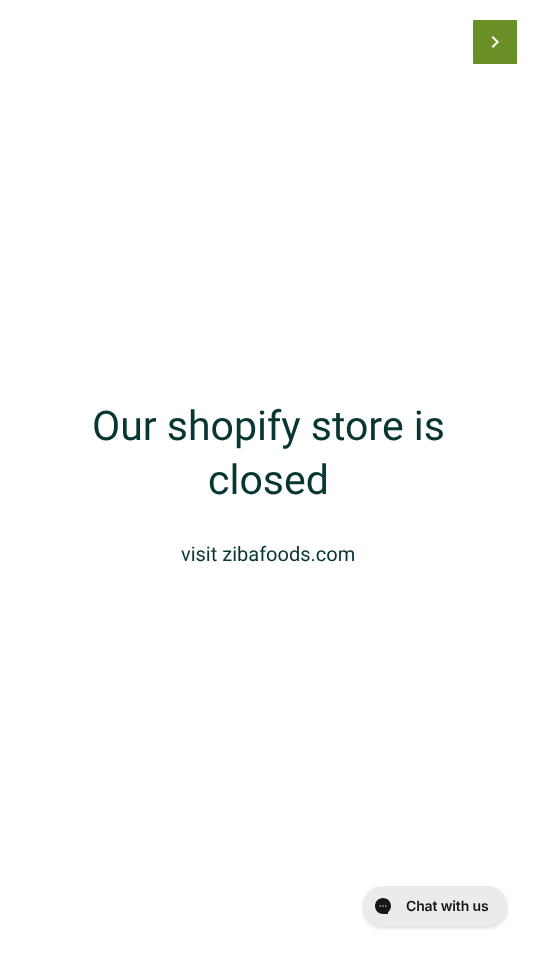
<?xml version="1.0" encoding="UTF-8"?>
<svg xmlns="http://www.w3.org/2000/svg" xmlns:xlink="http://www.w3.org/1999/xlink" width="537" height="953">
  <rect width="100%" height="100%" fill="#ffffff" />
  <rect x="473" y="20" width="44" height="44" rx="1" fill="#698f26" />
  <image x="491" y="36" width="8" height="12" xlink:href="image1.png" />
  <image x="361" y="886" width="148" height="44" xlink:href="image2.png" />
  <text x="92" y="440" style="font-family: Roboto; font-size: 41px; fill: #083633">Our shopify store is</text>
  <text x="208" y="494" style="font-family: Roboto; font-size: 41px; fill: #083633">closed</text>
  <text x="181" y="561" style="font-family: Roboto; font-size: 20px; fill: #083633">visit zibafoods.com</text>
</svg>
